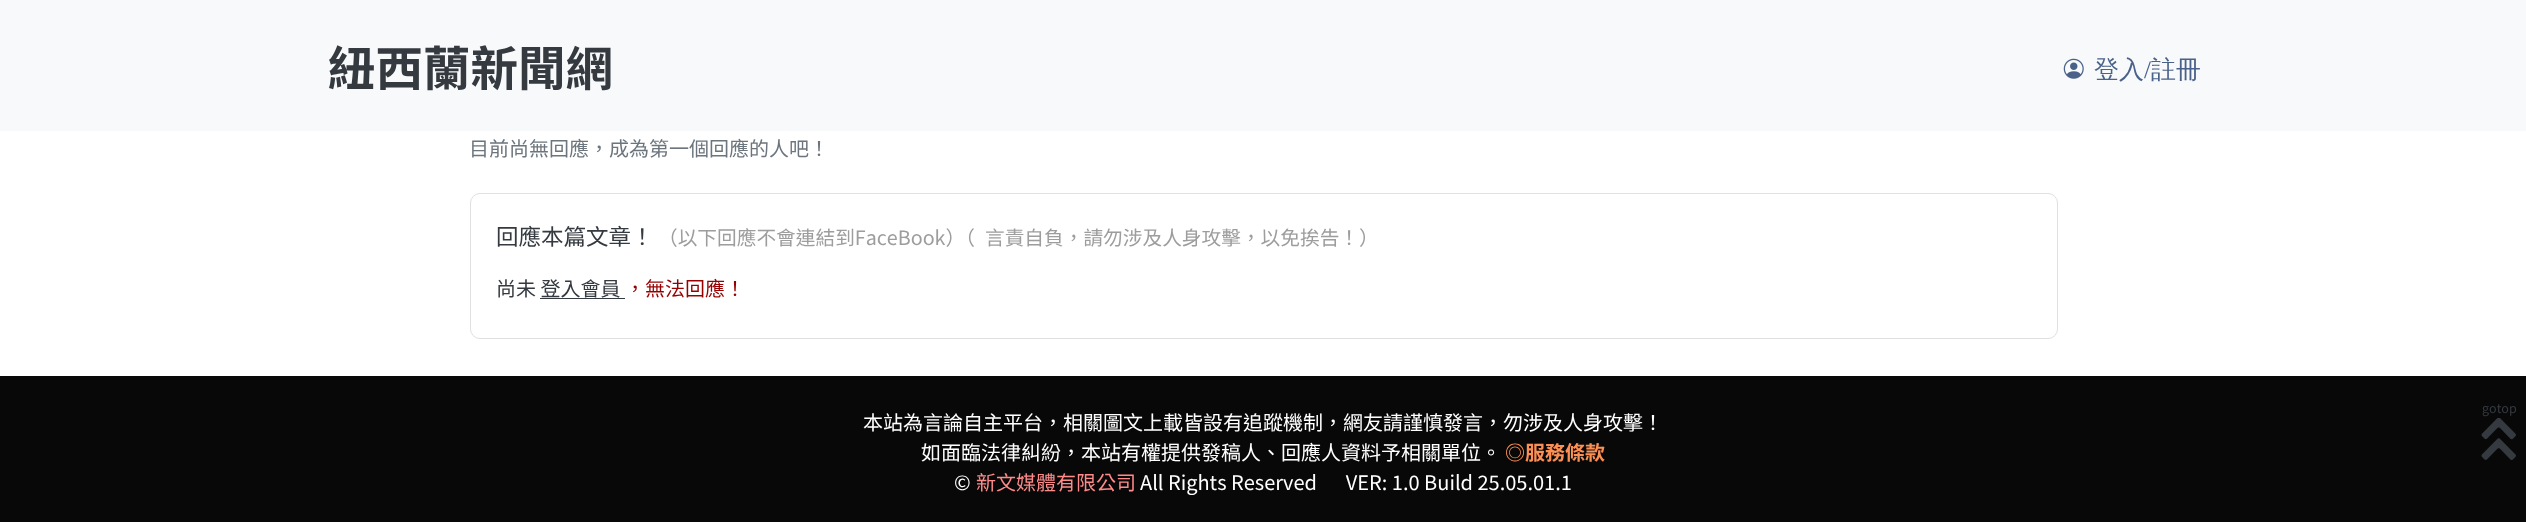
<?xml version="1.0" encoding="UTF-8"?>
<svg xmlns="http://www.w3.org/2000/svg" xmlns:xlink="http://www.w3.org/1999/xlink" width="2526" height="522">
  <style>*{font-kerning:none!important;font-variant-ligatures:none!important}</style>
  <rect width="100%" height="100%" fill="#ffffff" />
  <rect width="2526" height="131" fill="#f8f9fa" />
  <image x="2063" y="58" width="21" height="21" xlink:href="image1.png" />
  <rect x="470.5" y="193.5" width="1587" height="145" rx="9.5" fill="none" stroke="#e0e0e0" />
  <rect x="540" y="298" width="85" height="1" fill="#343a40" />
  <rect y="376" width="2526" height="146" fill="#080808" />
  <image x="2481" y="418" width="35" height="42" xlink:href="image2.png" />
  <text x="328" y="86" style="font-family: Noto Sans TC; font-size: 47.5px; font-weight: bold; fill: #343a40">紐西蘭新聞網</text>
  <text x="2094" y="78" style="font-family: WenQuanYi Zen Hei; font-size: 25px; font-weight: 500; fill: #4a628a">登入</text>
  <text x="2144" y="78" style="font-family: Liberation Serif; font-size: 25px; fill: #4a628a">/</text>
  <text x="2151" y="78" style="font-family: WenQuanYi Zen Hei; font-size: 25px; font-weight: 500; fill: #4a628a">註冊</text>
  <text x="469" y="156" style="font-family: Noto Sans TC; font-size: 20px; fill: #6c757d">目前尚無回應，成為第一個回應的人吧！</text>
  <text x="496" y="245" style="font-family: Noto Sans TC; font-size: 22.5px; fill: #343a40">回應本篇文章！</text>
  <text x="658" y="245" style="font-family: Noto Sans TC; font-size: 19.7px; fill: #9d9d9d">（以下回應不會連結到FaceBook）（</text>
  <text x="985" y="245" style="font-family: Noto Sans TC; font-size: 19.7px; fill: #9d9d9d">言責自負，請勿涉及人身攻擊，以免挨告！）</text>
  <text x="496" y="296" style="font-family: Noto Sans TC; font-size: 20px; fill: #343a40">尚未 登入會員</text>
  <text x="625" y="296" style="font-family: Noto Sans TC; font-size: 20px; fill: #970000">，無法回應！</text>
  <text x="2482" y="413" style="font-family: Noto Sans TC; font-size: 12.5px; fill: #343a40">gotop</text>
  <text x="863" y="430" style="font-family: Noto Sans TC; font-size: 20px; fill: #ffffff">本站為言論自主平台，相關圖文上載皆設有追蹤機制，網友請謹慎發言，勿涉及人身攻擊！</text>
  <text x="921" y="460" style="font-family: Noto Sans TC; font-size: 20px; fill: #ffffff">如面臨法律糾紛，本站有權提供發稿人、回應人資料予相關單位。</text>
  <text x="1505" y="460" style="font-family: Noto Sans TC; font-size: 20px; font-weight: bold; fill: #fc8f54">◎服務條款</text>
  <text x="954" y="490" style="font-family: Noto Sans TC; font-size: 20px; fill: #ffffff">©</text>
  <text x="976" y="490" style="font-family: Noto Sans TC; font-size: 20px; fill: #ff8a8a">新文媒體有限公司</text>
  <text x="1140" y="490" style="font-family: Noto Sans TC; font-size: 20px; fill: #ffffff">All Rights Reserved   VER: 1.0 Build 25.05.01.1</text>
</svg>
